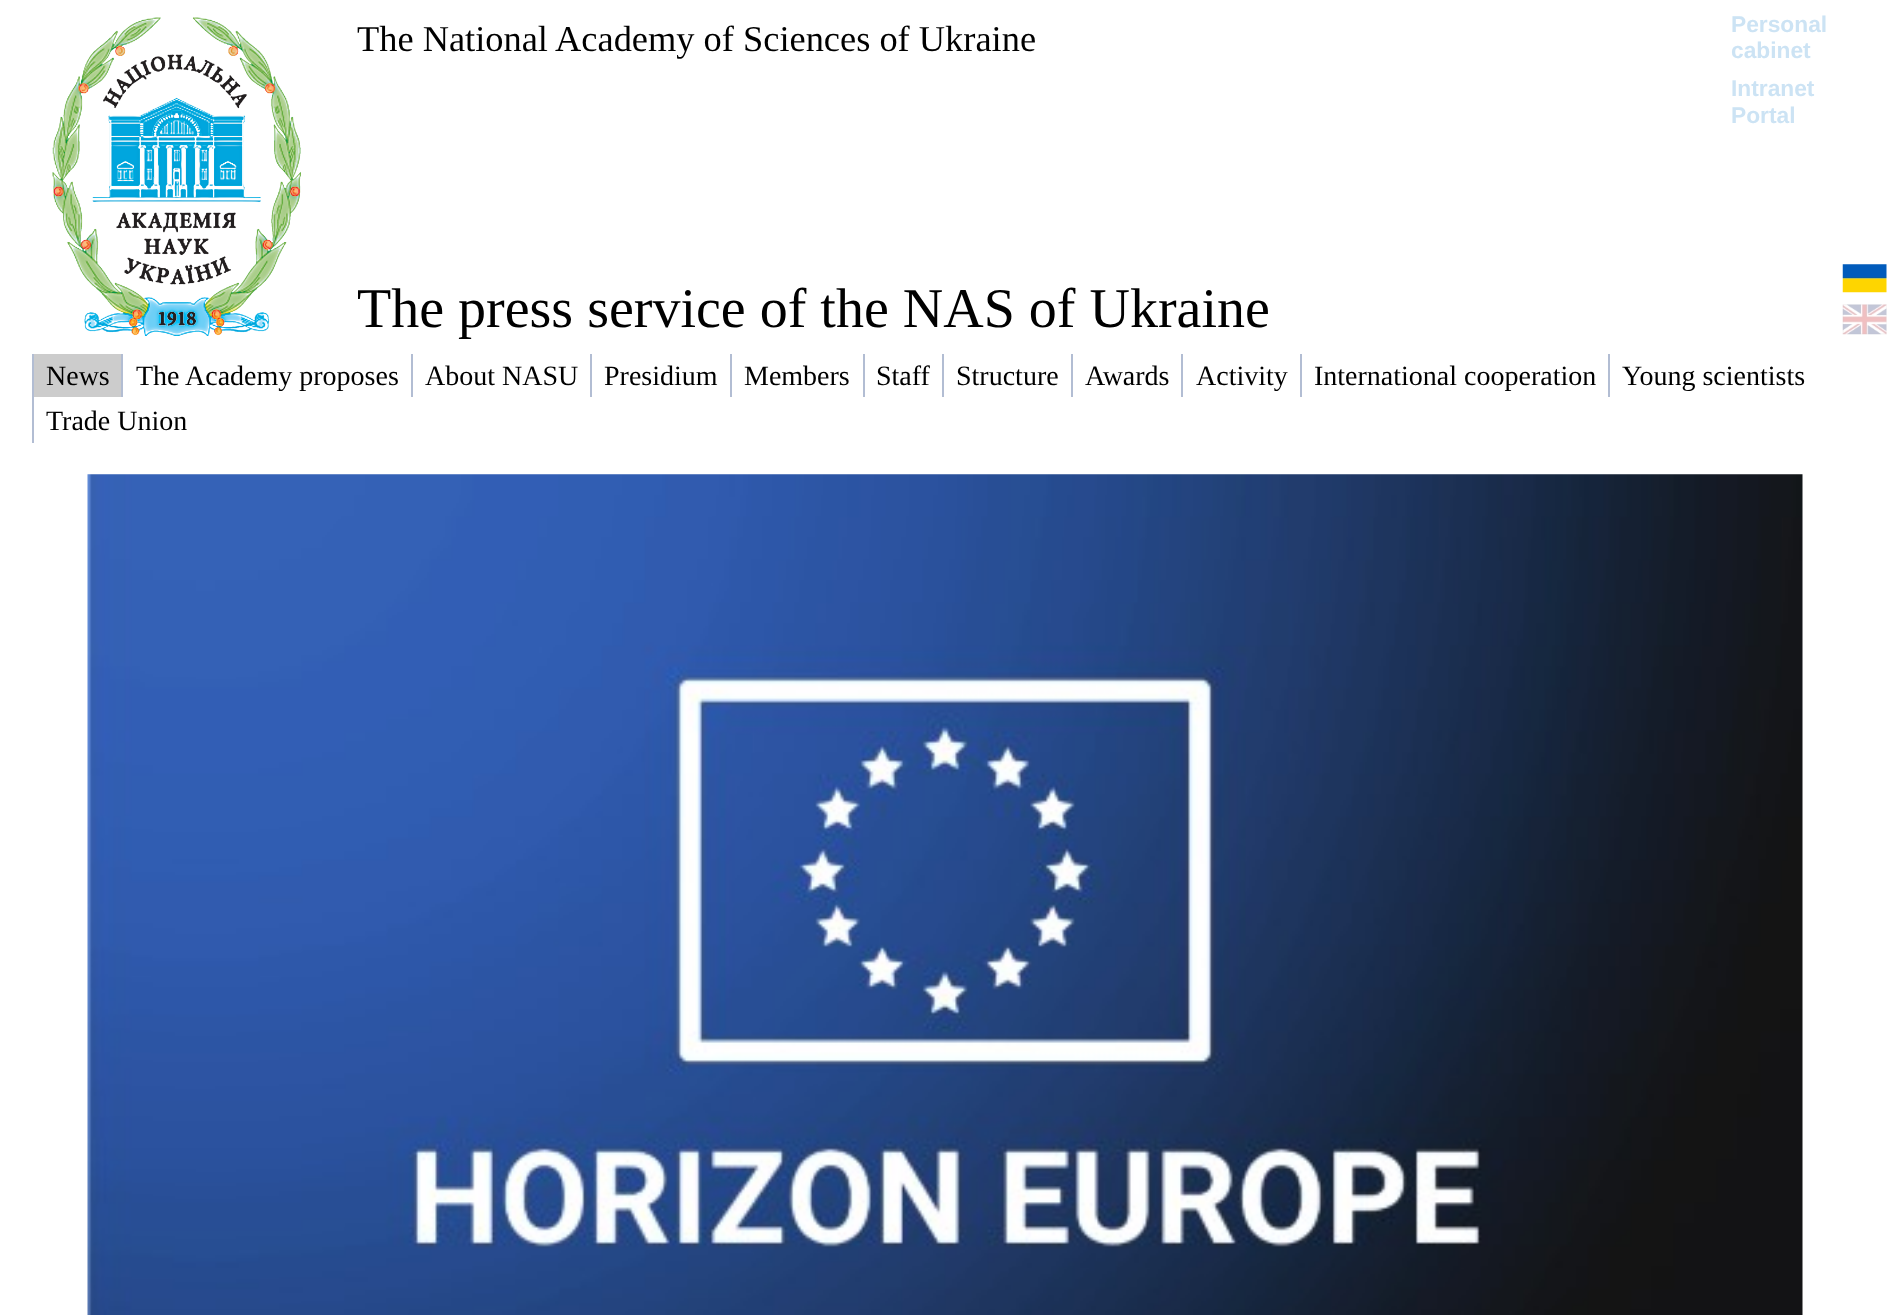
<?xml version="1.0" encoding="UTF-8"?>
<svg xmlns="http://www.w3.org/2000/svg" xmlns:xlink="http://www.w3.org/1999/xlink" width="1901" height="1315">
  <rect width="100%" height="100%" fill="#ffffff" />
  <image x="52" y="17" width="249" height="319" xlink:href="image1.png" />
  <image x="1842" y="264" width="45" height="29" xlink:href="image2.png" />
  <image x="1842" y="304" width="45" height="31" xlink:href="image3.png" />
  <rect x="34" y="354" width="87" height="43" fill="#cccccc" />
  <rect x="32" y="354" width="2" height="89" fill="#b2bdd3" />
  <rect x="121" y="354" width="2" height="43" fill="#b2bdd3" />
  <rect x="411" y="354" width="2" height="43" fill="#b2bdd3" />
  <rect x="590" y="354" width="2" height="43" fill="#b2bdd3" />
  <rect x="730" y="354" width="2" height="43" fill="#b2bdd3" />
  <rect x="863" y="354" width="2" height="43" fill="#b2bdd3" />
  <rect x="942" y="354" width="2" height="43" fill="#b2bdd3" />
  <rect x="1071" y="354" width="2" height="43" fill="#b2bdd3" />
  <rect x="1181" y="354" width="2" height="43" fill="#b2bdd3" />
  <rect x="1300" y="354" width="2" height="43" fill="#b2bdd3" />
  <rect x="1608" y="354" width="2" height="43" fill="#b2bdd3" />
  <image x="87" y="474" width="1716" height="841" xlink:href="image4.png" />
  <text x="357" y="51" style="font-family: Liberation Serif; font-size: 36.4px; fill: #000000">The National Academy of Sciences of Ukraine</text>
  <text x="1731" y="32" style="font-family: Liberation Sans; font-size: 22.75px; font-weight: bold; fill: #cce3f4">Personal</text>
  <text x="1731" y="58" style="font-family: Liberation Sans; font-size: 22.75px; font-weight: bold; fill: #cce3f4">cabinet</text>
  <text x="1731" y="96" style="font-family: Liberation Sans; font-size: 22.75px; font-weight: bold; fill: #cce3f4">Intranet</text>
  <text x="1731" y="123" style="font-family: Liberation Sans; font-size: 22.75px; font-weight: bold; fill: #cce3f4">Portal</text>
  <text x="357" y="327" style="font-family: Liberation Serif; font-size: 56px; fill: #000000">The press service of the NAS of Ukraine</text>
  <text x="46" y="385" style="font-family: Liberation Serif; font-size: 28px; fill: #000000">News</text>
  <text x="136" y="385" style="font-family: Liberation Serif; font-size: 28px; fill: #000000">The Academy proposes</text>
  <text x="425" y="385" style="font-family: Liberation Serif; font-size: 28px; fill: #000000">About NASU</text>
  <text x="604" y="385" style="font-family: Liberation Serif; font-size: 28px; fill: #000000">Presidium</text>
  <text x="744" y="385" style="font-family: Liberation Serif; font-size: 28px; fill: #000000">Members</text>
  <text x="876" y="385" style="font-family: Liberation Serif; font-size: 28px; fill: #000000">Staff</text>
  <text x="956" y="385" style="font-family: Liberation Serif; font-size: 28px; fill: #000000">Structure</text>
  <text x="1085" y="385" style="font-family: Liberation Serif; font-size: 28px; fill: #000000">Awards</text>
  <text x="1196" y="385" style="font-family: Liberation Serif; font-size: 28px; fill: #000000">Activity</text>
  <text x="1314" y="385" style="font-family: Liberation Serif; font-size: 28px; fill: #000000">International cooperation</text>
  <text x="1622" y="385" style="font-family: Liberation Serif; font-size: 28px; fill: #000000">Young scientists</text>
  <text x="46" y="430" style="font-family: Liberation Serif; font-size: 28px; fill: #000000">Trade Union</text>
</svg>
